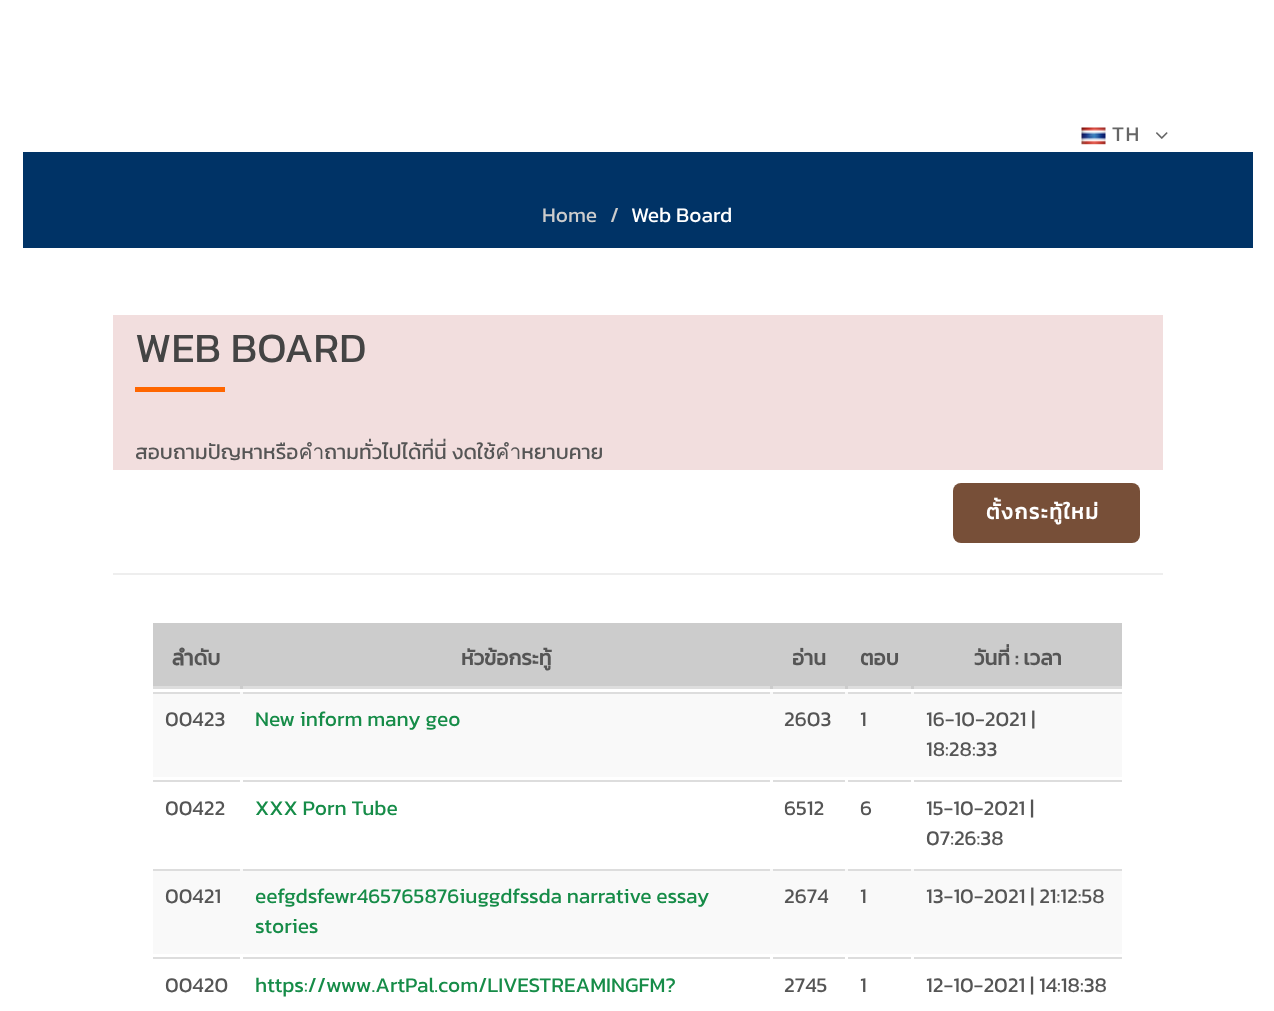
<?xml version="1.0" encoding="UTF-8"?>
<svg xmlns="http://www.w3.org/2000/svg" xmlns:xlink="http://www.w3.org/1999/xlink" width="1274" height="1011">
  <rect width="100%" height="100%" fill="#ffffff" />
  <image x="1081" y="127" width="25" height="18" xlink:href="image1.png" />
  <image x="1156" y="132" width="12" height="7" xlink:href="image2.png" />
  <rect x="23" y="152" width="1230" height="96" fill="#003366" />
  <rect x="113" y="315" width="1050" height="155" fill="#f2dede" />
  <rect x="135" y="387" width="90" height="5" fill="#ff6600" />
  <rect x="953" y="483" width="187" height="60" rx="8" fill="#774f38" />
  <rect x="113" y="573" width="1050" height="2" fill="#eeeeee" />
  <rect x="153" y="623" width="969" height="66" fill="#cccccc" />
  <rect x="153" y="686" width="87" height="3" fill="#dddddd" />
  <rect x="243" y="686" width="527" height="3" fill="#dddddd" />
  <rect x="773" y="686" width="72" height="3" fill="#dddddd" />
  <rect x="848" y="686" width="63" height="3" fill="#dddddd" />
  <rect x="914" y="686" width="208" height="3" fill="#dddddd" />
  <rect x="153" y="692" width="969" height="85" fill="#f9f9f9" />
  <rect x="153" y="692" width="87" height="2" fill="#dddddd" />
  <rect x="243" y="692" width="527" height="2" fill="#dddddd" />
  <rect x="773" y="692" width="72" height="2" fill="#dddddd" />
  <rect x="848" y="692" width="63" height="2" fill="#dddddd" />
  <rect x="914" y="692" width="208" height="2" fill="#dddddd" />
  <rect x="153" y="780" width="87" height="2" fill="#dddddd" />
  <rect x="243" y="780" width="527" height="2" fill="#dddddd" />
  <rect x="773" y="780" width="72" height="2" fill="#dddddd" />
  <rect x="848" y="780" width="63" height="2" fill="#dddddd" />
  <rect x="914" y="780" width="208" height="2" fill="#dddddd" />
  <rect x="153" y="869" width="969" height="85" fill="#f9f9f9" />
  <rect x="153" y="869" width="87" height="2" fill="#dddddd" />
  <rect x="243" y="869" width="527" height="2" fill="#dddddd" />
  <rect x="773" y="869" width="72" height="2" fill="#dddddd" />
  <rect x="848" y="869" width="63" height="2" fill="#dddddd" />
  <rect x="914" y="869" width="208" height="2" fill="#dddddd" />
  <rect x="153" y="957" width="87" height="2" fill="#dddddd" />
  <rect x="243" y="957" width="527" height="2" fill="#dddddd" />
  <rect x="773" y="957" width="72" height="2" fill="#dddddd" />
  <rect x="848" y="957" width="63" height="2" fill="#dddddd" />
  <rect x="914" y="957" width="208" height="2" fill="#dddddd" />
  <text x="1112" y="141" style="font-family: Kanit; font-size: 21px; letter-spacing: 1.5px; fill: #666666">TH</text>
  <text x="542" y="222" style="font-family: Kanit; font-size: 21px; fill: #cccccc">Home</text>
  <text x="610" y="222" style="font-family: Kanit; font-size: 21px; fill: #cccccc">/</text>
  <text x="631" y="222" style="font-family: Kanit; font-size: 21px; fill: #ffffff">Web Board</text>
  <text x="135" y="362" style="font-family: Kanit; font-size: 42px; fill: #444444">WEB BOARD</text>
  <text x="135" y="459" style="font-family: Kanit; font-size: 21px; fill: #555555">สอบถามปัญหาหรือคำถามทั่วไปได้ที่นี่ งดใช้คำหยาบคาย</text>
  <text x="986" y="519" style="font-family: Kanit; font-size: 21px; font-weight: bold; letter-spacing: 1.5px; fill: #ffffff">ตั้งกระทู้ใหม่</text>
  <text x="172" y="665" style="font-family: Kanit; font-size: 21px; font-weight: bold; fill: #555555">ลำดับ</text>
  <text x="461" y="665" style="font-family: Kanit; font-size: 21px; font-weight: bold; fill: #555555">หัวข้อกระทู้</text>
  <text x="792" y="665" style="font-family: Kanit; font-size: 21px; font-weight: bold; fill: #555555">อ่าน</text>
  <text x="860" y="665" style="font-family: Kanit; font-size: 21px; font-weight: bold; fill: #555555">ตอบ</text>
  <text x="974" y="665" style="font-family: Kanit; font-size: 21px; font-weight: bold; fill: #555555">วันที่ : เวลา</text>
  <text x="165" y="726" style="font-family: Kanit; font-size: 21px; fill: #555555">00423</text>
  <text x="255" y="726" style="font-family: Kanit; font-size: 21px; fill: #168c48">New inform many geo</text>
  <text x="784" y="726" style="font-family: Kanit; font-size: 21px; fill: #555555">2603</text>
  <text x="860" y="726" style="font-family: Kanit; font-size: 21px; fill: #555555">1</text>
  <text x="926" y="726" style="font-family: Kanit; font-size: 21px; fill: #555555">16-10-2021 |</text>
  <text x="926" y="756" style="font-family: Kanit; font-size: 21px; fill: #555555">18:28:33</text>
  <text x="165" y="815" style="font-family: Kanit; font-size: 21px; fill: #555555">00422</text>
  <text x="255" y="815" style="font-family: Kanit; font-size: 21px; fill: #168c48">XXX Porn Tube</text>
  <text x="784" y="815" style="font-family: Kanit; font-size: 21px; fill: #555555">6512</text>
  <text x="860" y="815" style="font-family: Kanit; font-size: 21px; fill: #555555">6</text>
  <text x="926" y="815" style="font-family: Kanit; font-size: 21px; fill: #555555">15-10-2021 |</text>
  <text x="926" y="845" style="font-family: Kanit; font-size: 21px; fill: #555555">07:26:38</text>
  <text x="165" y="903" style="font-family: Kanit; font-size: 21px; fill: #555555">00421</text>
  <text x="255" y="903" style="font-family: Kanit; font-size: 21px; fill: #168c48">eefgdsfewr465765876iuggdfssda narrative essay</text>
  <text x="255" y="933" style="font-family: Kanit; font-size: 21px; fill: #168c48">stories</text>
  <text x="784" y="903" style="font-family: Kanit; font-size: 21px; fill: #555555">2674</text>
  <text x="860" y="903" style="font-family: Kanit; font-size: 21px; fill: #555555">1</text>
  <text x="926" y="903" style="font-family: Kanit; font-size: 21px; fill: #555555">13-10-2021 | 21:12:58</text>
  <text x="165" y="992" style="font-family: Kanit; font-size: 21px; fill: #555555">00420</text>
  <text x="255" y="992" style="font-family: Kanit; font-size: 21px; fill: #168c48">https://www.ArtPal.com/LIVESTREAMINGFM?</text>
  <text x="784" y="992" style="font-family: Kanit; font-size: 21px; fill: #555555">2745</text>
  <text x="860" y="992" style="font-family: Kanit; font-size: 21px; fill: #555555">1</text>
  <text x="926" y="992" style="font-family: Kanit; font-size: 21px; fill: #555555">12-10-2021 | 14:18:38</text>
</svg>
